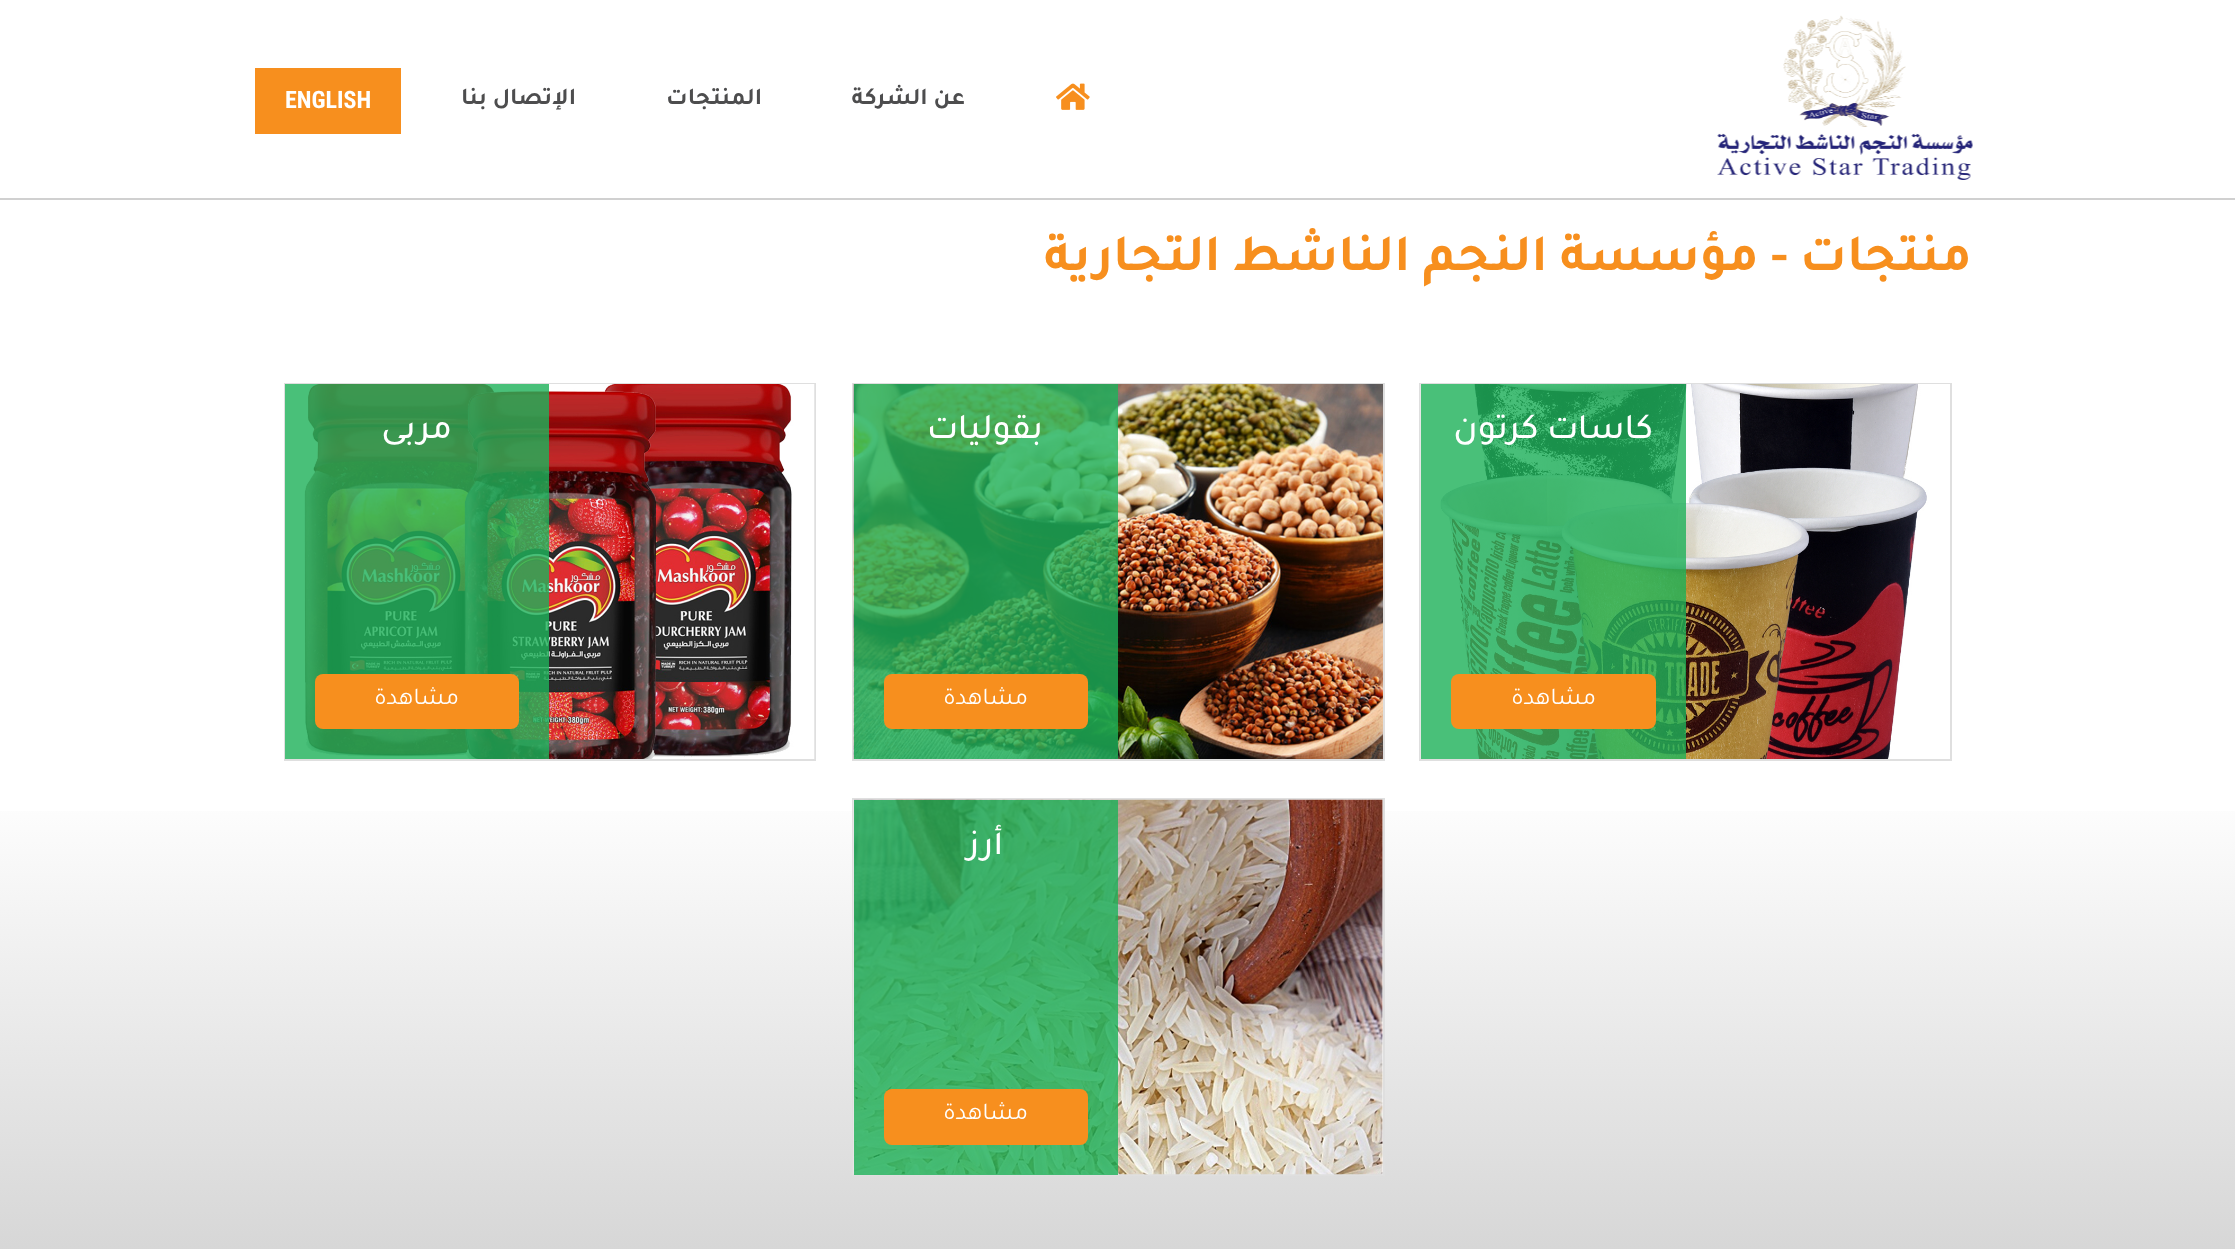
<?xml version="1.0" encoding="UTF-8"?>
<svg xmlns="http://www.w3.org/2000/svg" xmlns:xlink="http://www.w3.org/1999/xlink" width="2235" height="1249">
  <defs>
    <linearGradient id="g1" gradientUnits="userSpaceOnUse" x1="1118" y1="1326" x2="1118" y2="0"><stop offset="0" stop-color="#000000" /><stop offset="0" stop-color="#d0d0d0" /><stop offset="0.41" stop-color="#ffffff" /><stop offset="1" stop-color="#ffffff" /></linearGradient>
  </defs>
  <rect width="100%" height="100%" fill="#ffffff" />
  <rect y="198" width="2235" height="2" fill="#d0d0d0" />
  <image x="1717" y="15" width="256" height="165" xlink:href="image1.png" />
  <image x="1056" y="83" width="34" height="27" xlink:href="image2.png" />
  <rect x="255" y="68" width="146" height="66" fill="#f78f1e" />
  <rect y="811" width="2235" height="438" fill="url(#g1)" />
  <rect x="1420" y="384" width="531" height="376" fill="none" stroke="#dfdfdf" stroke-width="2" />
  <image x="1420" y="384" width="530" height="375" xlink:href="image3.png" />
  <rect x="1421" y="384" width="265" height="375" fill="#1fb25a" fill-opacity="0.81" />
  <rect x="1451" y="674" width="205" height="55" rx="8" fill="#f78f1e" />
  <rect x="853" y="384" width="531" height="376" fill="none" stroke="#dfdfdf" stroke-width="2" />
  <image x="853" y="384" width="530" height="375" xlink:href="image4.png" />
  <rect x="854" y="384" width="264" height="375" fill="#1fb25a" fill-opacity="0.81" />
  <rect x="884" y="674" width="204" height="55" rx="8" fill="#f78f1e" />
  <rect x="285" y="384" width="530" height="376" fill="none" stroke="#dfdfdf" stroke-width="2" />
  <image x="285" y="384" width="530" height="375" xlink:href="image5.png" />
  <rect x="285" y="384" width="264" height="375" fill="#1fb25a" fill-opacity="0.81" />
  <rect x="315" y="674" width="204" height="55" rx="8" fill="#f78f1e" />
  <rect x="853" y="799" width="531" height="376" fill="none" stroke="#dfdfdf" stroke-width="2" />
  <image x="853" y="799" width="530" height="376" xlink:href="image6.png" />
  <rect x="854" y="800" width="264" height="375" fill="#1fb25a" fill-opacity="0.81" />
  <rect x="884" y="1089" width="204" height="56" rx="8" fill="#f78f1e" />
  <text x="965" y="104" style="font-family: Tajawal; font-size: 24px; font-weight: bold; direction: rtl; fill: #4d4d4e">عن الشركة</text>
  <text x="762" y="104" style="font-family: Tajawal; font-size: 24px; font-weight: bold; direction: rtl; fill: #4d4d4e">المنتجات</text>
  <text x="576" y="104" style="font-family: Tajawal; font-size: 24px; font-weight: bold; direction: rtl; fill: #4d4d4e">الإتصال بنا</text>
  <text x="285" y="108" style="font-family: Roboto Condensed; font-size: 24px; font-weight: bold; fill: #ffffff">ENGLISH</text>
  <text x="1972" y="270" style="font-family: Tajawal; font-size: 52.5px; font-weight: bold; direction: rtl; fill: #f78f1e">منتجات - مؤسسة النجم الناشط التجارية</text>
  <text x="1653" y="438" style="font-family: Tajawal; font-size: 36px; font-weight: 500; direction: rtl; fill: #ffffff">كاسات كرتون</text>
  <text x="1596" y="704" style="font-family: Tajawal; font-size: 24px; direction: rtl; fill: #ffffff">مشاهدة</text>
  <text x="1043" y="438" style="font-family: Tajawal; font-size: 36px; font-weight: 500; direction: rtl; fill: #ffffff">بقوليات</text>
  <text x="1028" y="704" style="font-family: Tajawal; font-size: 24px; direction: rtl; fill: #ffffff">مشاهدة</text>
  <text x="452" y="438" style="font-family: Tajawal; font-size: 36px; font-weight: 500; direction: rtl; fill: #ffffff">مربى</text>
  <text x="459" y="704" style="font-family: Tajawal; font-size: 24px; direction: rtl; fill: #ffffff">مشاهدة</text>
  <text x="1003" y="854" style="font-family: Tajawal; font-size: 36px; font-weight: 500; direction: rtl; fill: #ffffff">أرز</text>
  <text x="1028" y="1119" style="font-family: Tajawal; font-size: 24px; direction: rtl; fill: #ffffff">مشاهدة</text>
</svg>
